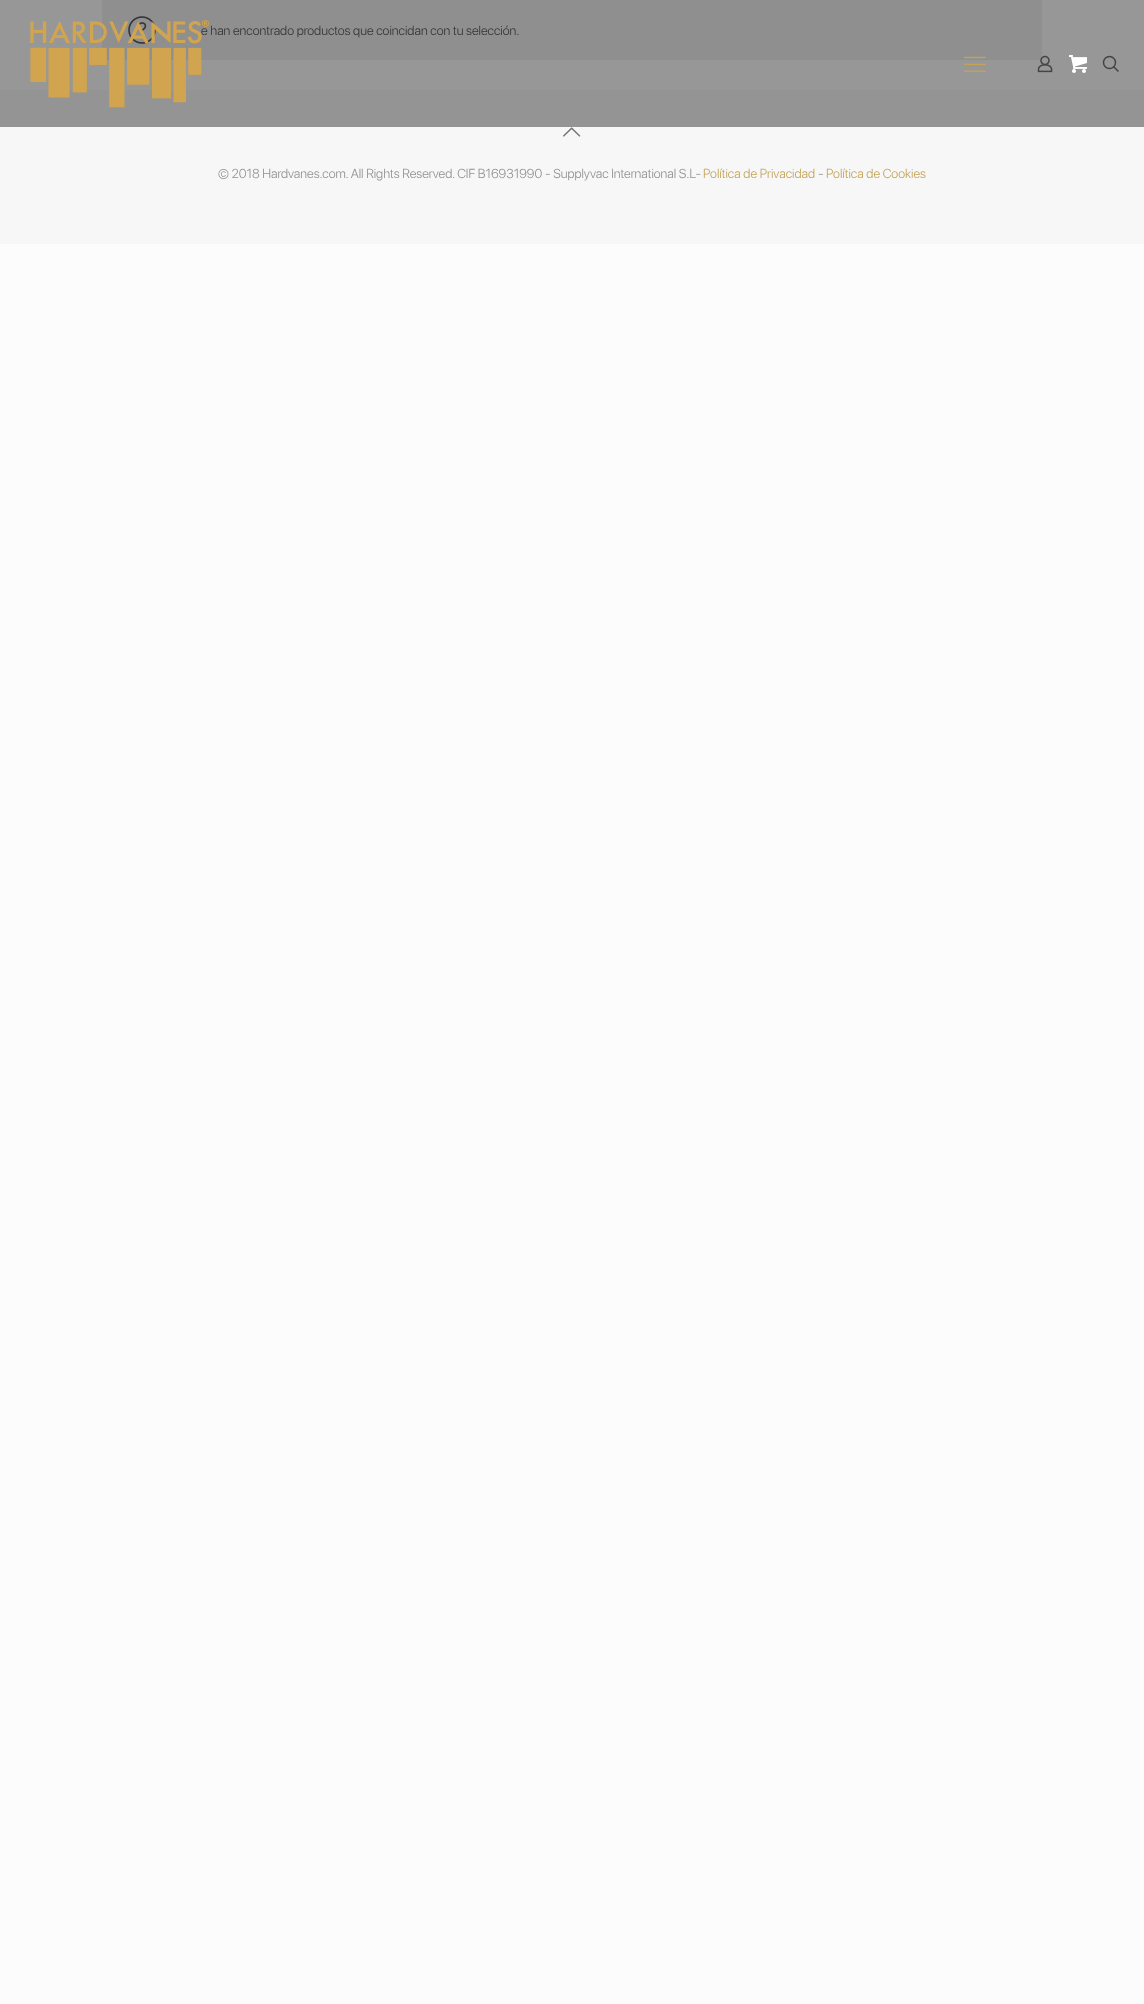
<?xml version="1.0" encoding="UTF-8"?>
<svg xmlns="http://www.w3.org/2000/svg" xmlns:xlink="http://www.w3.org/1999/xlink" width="1144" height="2004">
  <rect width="100%" height="100%" fill="#fcfcfc" />
  <rect width="1144" height="90" fill="#979797" />
  <rect x="102" width="940" height="60" fill="#8f8f8f" />
  <image x="964" y="56" width="22" height="16" xlink:href="image2.png" />
  <image x="1037" y="55" width="16" height="18" xlink:href="image3.png" />
  <image x="1069" y="55" width="18" height="18" xlink:href="image4.png" />
  <circle cx="1109.5" cy="62.5" r="6" fill="none" stroke="#444444" stroke-width="1.5" />
  <path d="M 1113.5 66.5 l 5 5" fill="none" stroke="#444444" stroke-width="1.5" />
  <image x="128" y="16" width="28" height="28" xlink:href="image5.png" />
  <rect y="127" width="1144" height="117" fill="#f7f7f7" />
  <rect y="90" width="1144" height="37" fill="#949494" />
  <image x="563" y="127" width="18" height="10" xlink:href="image6.png" />
  <text x="201" y="35" style="font-family: SF Pro Display; font-size: 13px; font-weight: 300; fill: #343437">e han encontrado productos que coincidan con tu selección.</text>
  <image x="30" y="20" width="179" height="88" xlink:href="image1.png" />
  <text x="218" y="178" style="font-family: SF Pro Display; font-size: 13px; font-weight: 300; fill: #919191">© 2018 Hardvanes.com. All Rights Reserved. CIF B16931990 - Supplyvac International S.L-</text>
  <text x="703" y="178" style="font-family: SF Pro Display; font-size: 13px; font-weight: 300; fill: #c4a355">Política de Privacidad</text>
  <text x="818" y="178" style="font-family: SF Pro Display; font-size: 13px; font-weight: 300; fill: #919191">-</text>
  <text x="826" y="178" style="font-family: SF Pro Display; font-size: 13px; font-weight: 300; fill: #c4a355">Política de Cookies</text>
</svg>
